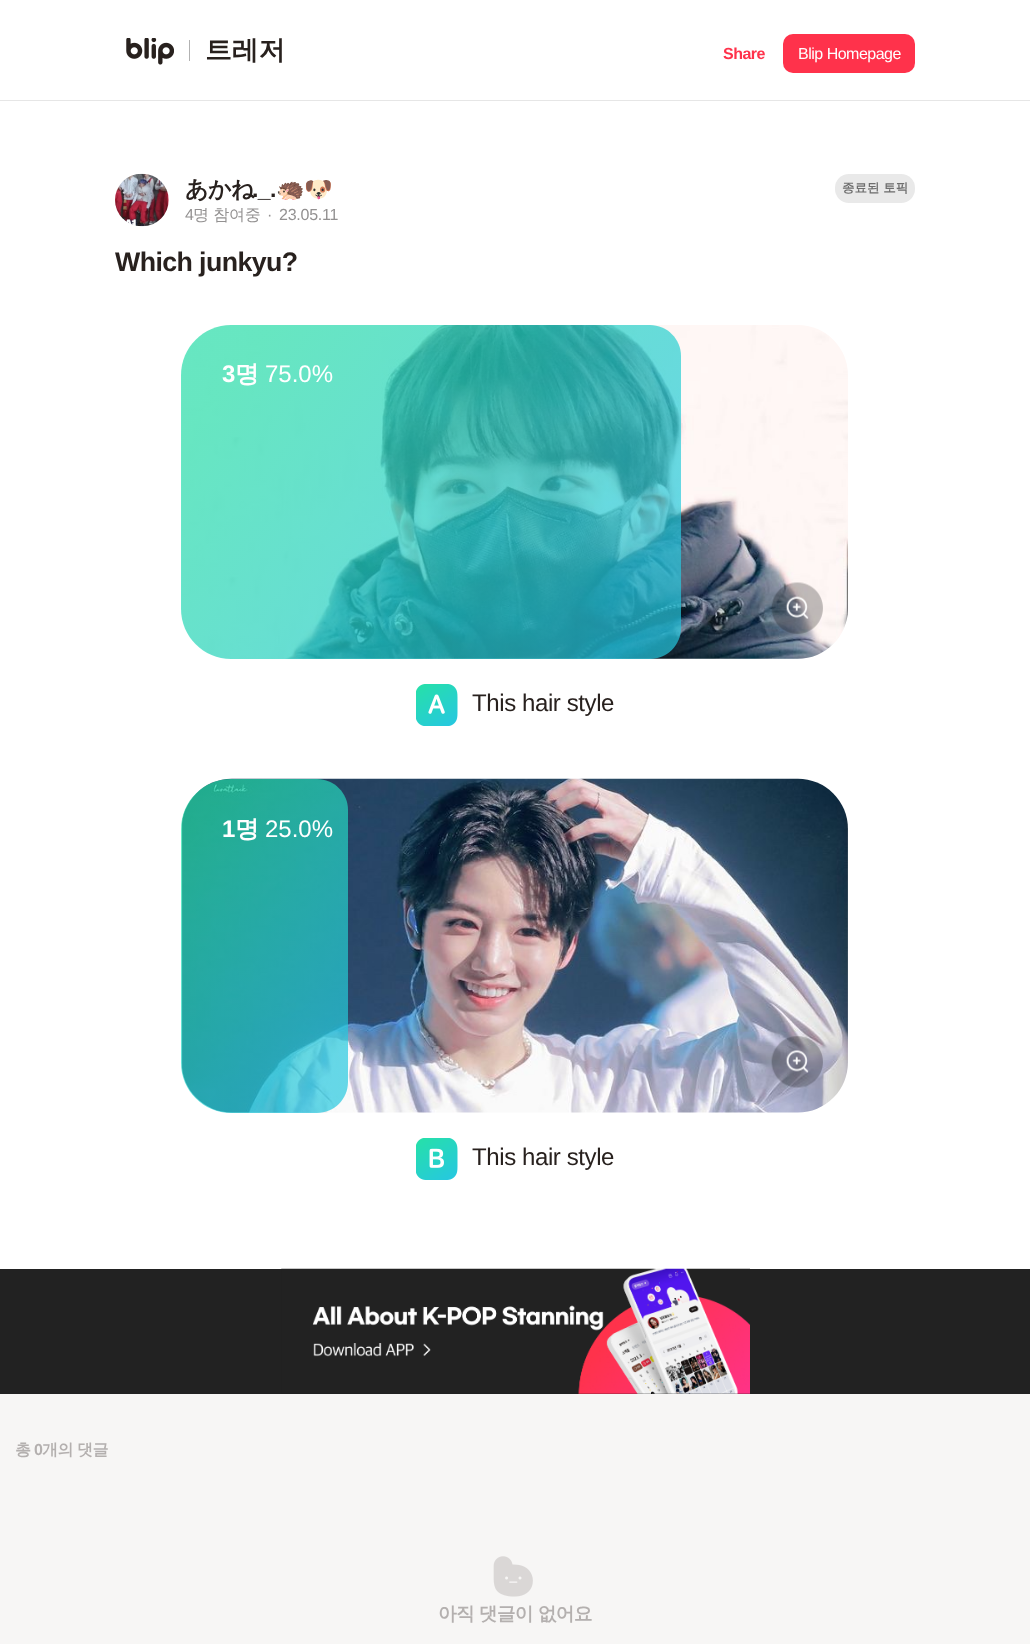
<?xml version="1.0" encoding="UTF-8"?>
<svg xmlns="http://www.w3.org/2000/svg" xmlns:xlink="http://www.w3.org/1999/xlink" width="1030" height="1644">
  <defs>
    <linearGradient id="g1" gradientUnits="userSpaceOnUse" x1="199" y1="304" x2="664" y2="680"><stop offset="0.12" stop-color="#26dfab" stop-opacity="0.7" /><stop offset="0.88" stop-color="#26c8df" stop-opacity="0.7" /></linearGradient>
    <linearGradient id="g2" gradientUnits="userSpaceOnUse" x1="133" y1="839" x2="397" y2="1052"><stop offset="0.12" stop-color="#26dfab" stop-opacity="0.7" /><stop offset="0.88" stop-color="#26c8df" stop-opacity="0.7" /></linearGradient>
  </defs>
  <rect width="100%" height="100%" fill="#ffffff" />
  <rect y="100" width="1030" height="1" fill="#e6e6e6" />
  <image x="126" y="38" width="48" height="27" xlink:href="image1.png" />
  <rect x="189" y="40" width="1" height="21" fill="#b2b2b2" />
  <rect x="783" y="34" width="132" height="39" rx="10" fill="#ff324b" />
  <image x="115" y="173" width="54" height="54" xlink:href="image2.png" />
  <rect x="835" y="174" width="80" height="29" rx="14" fill="#e9e9e9" />
  <image x="182" y="325" width="666" height="334" xlink:href="image3.png" />
  <path d="M 231 325 h 419 c 17 0 31 14 31 31 v 272 c 0 17 -14 31 -31 31 h -419 c -27.5 0 -50 -22.5 -50 -50 v -234 c 0 -27.5 22.5 -50 50 -50 z" fill="url(#g1)" />
  <image x="771" y="582" width="52" height="52" xlink:href="image4.png" />
  <image x="416" y="684" width="42" height="42" xlink:href="image5.png" />
  <image x="182" y="778" width="666" height="335" xlink:href="image6.png" />
  <path d="M 231 779 h 86 c 17 0 31 14 31 31 v 272 c 0 17 -14 31 -31 31 h -86 c -27.5 0 -50 -22.5 -50 -50 v -234 c 0 -27.5 22.5 -50 50 -50 z" fill="url(#g2)" />
  <image x="771" y="1036" width="52" height="52" xlink:href="image7.png" />
  <image x="416" y="1138" width="42" height="42" xlink:href="image8.png" />
  <rect y="1269" width="1030" height="125" fill="#222222" />
  <image x="281" y="1268" width="469" height="126" xlink:href="image9.png" />
  <rect y="1394" width="1030" height="250" fill="#f7f6f5" />
  <image x="493" y="1556" width="40" height="41" xlink:href="image10.png" />
  <text x="205" y="59" style="font-family: WenQuanYi Zen Hei; font-size: 26.75px; font-weight: bold; fill: #28211e">트레저</text>
  <text x="723" y="59" style="font-family: Liberation Sans; font-size: 16px; font-weight: bold; letter-spacing: -0.5px; fill: #ff324b">Share</text>
  <text x="798" y="59" style="font-family: Liberation Sans; font-size: 16px; letter-spacing: -0.5px; fill: #ffffff">Blip Homepage</text>
  <text x="185" y="197" style="font-family: WenQuanYi Zen Hei; font-size: 23px; font-weight: bold; letter-spacing: -0.6px; fill: #28211e">あかね</text>
  <text x="252" y="197" style="font-family: Liberation Sans; font-size: 23px; font-weight: bold; letter-spacing: -0.6px; fill: #28211e">._.</text>
  <text x="276" y="197" style="font-family: Noto Color Emoji; font-size: 23px; font-weight: bold; letter-spacing: -0.6px; fill: #28211e">🦔🐶</text>
  <text x="185" y="220" style="font-family: Liberation Sans; font-size: 16px; letter-spacing: -0.25px; fill: #939191">4</text>
  <text x="193" y="220" style="font-family: WenQuanYi Zen Hei; font-size: 16px; font-weight: 500; letter-spacing: -0.25px; fill: #939191">명 참여중</text>
  <text x="267" y="220" style="font-family: Liberation Sans; font-size: 16px; letter-spacing: -0.25px; fill: #939191">·</text>
  <text x="279" y="220" style="font-family: Liberation Sans; font-size: 16px; letter-spacing: -0.25px; fill: #939191">23.05.11</text>
  <text x="842" y="192" style="font-family: WenQuanYi Zen Hei; font-size: 12.5px; font-weight: bold; fill: #6e6e6e">종료된 토픽</text>
  <text x="115" y="271" style="font-family: Liberation Sans; font-size: 26.75px; font-weight: bold; letter-spacing: -0.6px; fill: #28211e">Which junkyu?</text>
  <text x="222" y="382" style="font-family: Liberation Sans; font-size: 24px; font-weight: bold; fill: #ffffff">3</text>
  <text x="235" y="382" style="font-family: WenQuanYi Zen Hei; font-size: 24px; font-weight: bold; fill: #ffffff">명</text>
  <text x="265" y="382" style="font-family: Liberation Sans; font-size: 24px; fill: #ffffff">75.0%</text>
  <text x="472" y="711" style="font-family: Liberation Sans; font-size: 24px; letter-spacing: -0.4px; fill: #28211e">This hair style</text>
  <text x="222" y="837" style="font-family: Liberation Sans; font-size: 24px; font-weight: bold; fill: #ffffff">1</text>
  <text x="235" y="837" style="font-family: WenQuanYi Zen Hei; font-size: 24px; font-weight: bold; fill: #ffffff">명</text>
  <text x="265" y="837" style="font-family: Liberation Sans; font-size: 24px; fill: #ffffff">25.0%</text>
  <text x="472" y="1165" style="font-family: Liberation Sans; font-size: 24px; letter-spacing: -0.4px; fill: #28211e">This hair style</text>
  <text x="15" y="1455" style="font-family: WenQuanYi Zen Hei; font-size: 16px; font-weight: bold; letter-spacing: -0.6px; fill: #b4b0af">총</text>
  <text x="34" y="1455" style="font-family: Liberation Sans; font-size: 16px; font-weight: bold; letter-spacing: -0.6px; fill: #b4b0af">0</text>
  <text x="42" y="1455" style="font-family: WenQuanYi Zen Hei; font-size: 16px; font-weight: bold; letter-spacing: -0.6px; fill: #b4b0af">개의 댓글</text>
  <text x="438" y="1620" style="font-family: WenQuanYi Zen Hei; font-size: 18.75px; font-weight: bold; letter-spacing: -0.75px; fill: #b4b0af">아직 댓글이 없어요</text>
</svg>
